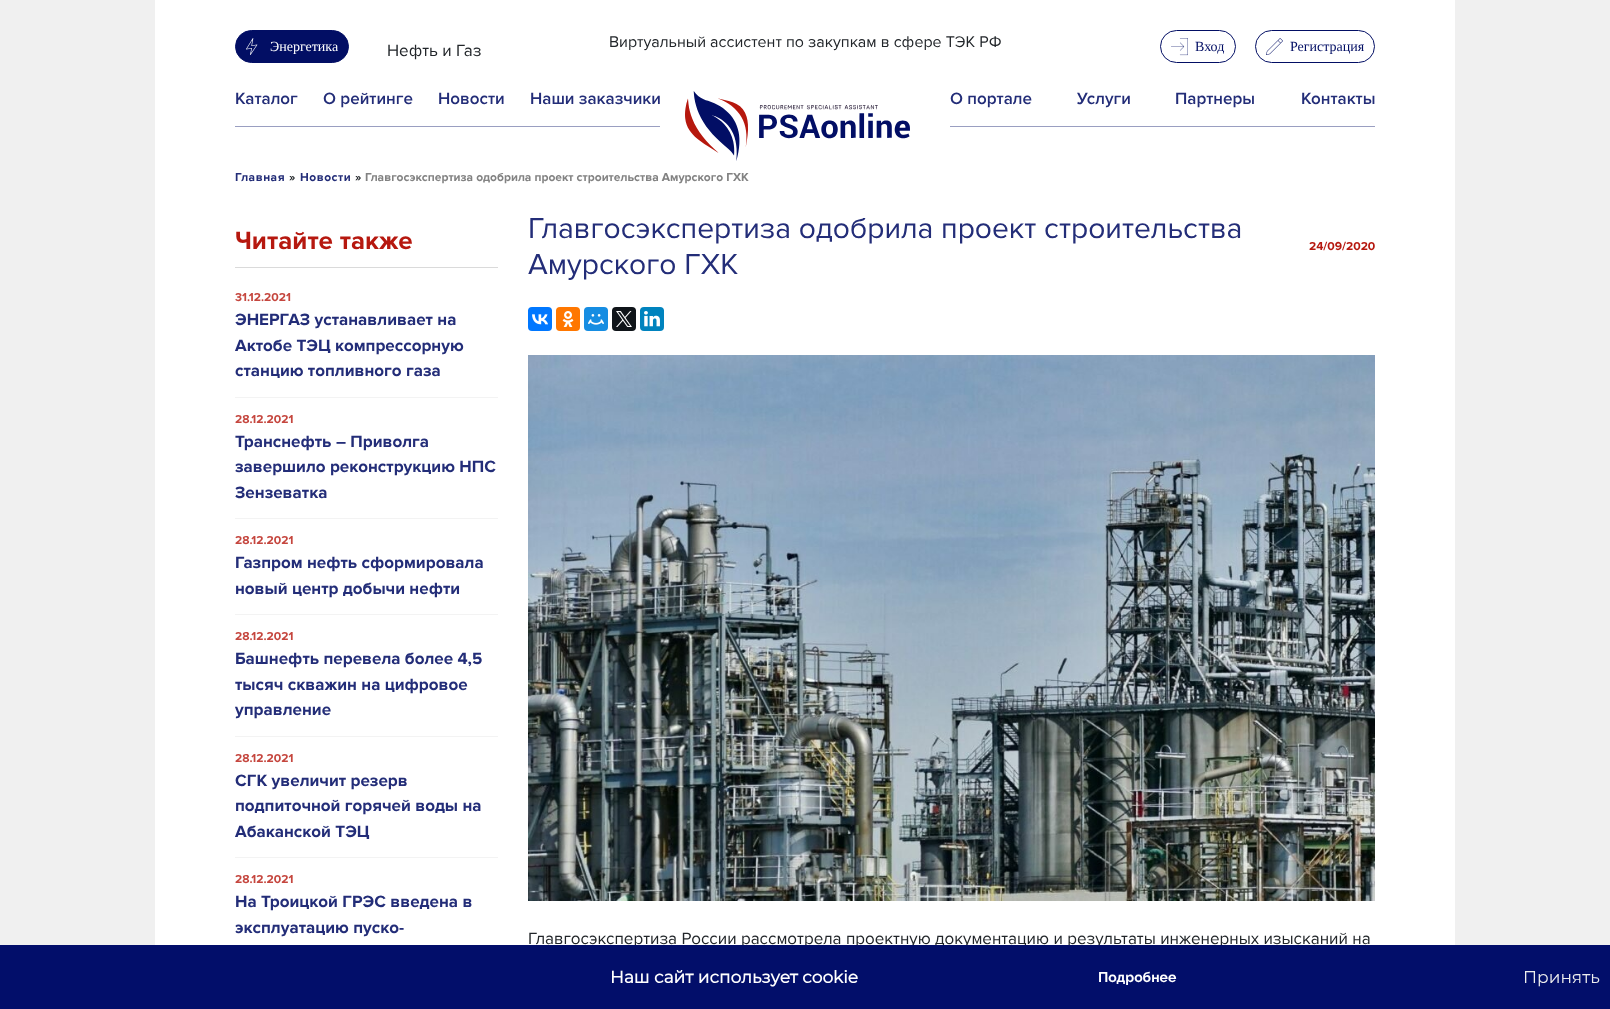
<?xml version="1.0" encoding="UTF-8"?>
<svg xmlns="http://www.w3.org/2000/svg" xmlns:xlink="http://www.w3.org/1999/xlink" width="1610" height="1009">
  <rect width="100%" height="100%" fill="#f0f0f0" />
  <rect x="155" width="1300" height="945" fill="#ffffff" />
  <rect x="235.5" y="30.5" width="113" height="32" rx="16" fill="#020e64" stroke="#020e64" />
  <image x="246" y="38" width="12" height="17" xlink:href="image1.png" />
  <rect x="1160.5" y="30.5" width="75" height="32" rx="16" fill="none" stroke="#020e64" />
  <image x="1171" y="38" width="17" height="18" xlink:href="image2.png" />
  <rect x="1255.5" y="30.5" width="119" height="32" rx="16" fill="none" stroke="#020e64" />
  <image x="1266" y="38" width="17" height="17" xlink:href="image3.png" />
  <rect x="235" y="126" width="425" height="1" fill="#9a9fc1" />
  <image x="685" y="91" width="225" height="70" xlink:href="image4.png" />
  <rect x="950" y="126" width="425" height="1" fill="#9a9fc1" />
  <rect x="235" y="267" width="263" height="1" fill="#dadada" />
  <rect x="235" y="397" width="263" height="1" fill="#f3f3f3" />
  <rect x="235" y="518" width="263" height="1" fill="#f3f3f3" />
  <rect x="235" y="614" width="263" height="1" fill="#f3f3f3" />
  <rect x="235" y="736" width="263" height="1" fill="#f3f3f3" />
  <rect x="235" y="857" width="263" height="1" fill="#f3f3f3" />
  <rect x="528" y="307" width="24" height="24" rx="4" fill="#0077ff" />
  <image x="532" y="314" width="16" height="11" xlink:href="image5.png" />
  <rect x="556" y="307" width="24" height="24" rx="4" fill="#ff7700" />
  <image x="562" y="311" width="12" height="16" xlink:href="image6.png" />
  <rect x="584" y="307" width="24" height="24" rx="4" fill="#168de2" />
  <image x="588" y="314" width="16" height="11" xlink:href="image7.png" />
  <rect x="612" y="307" width="24" height="24" rx="4" fill="#0f1419" />
  <image x="616" y="311" width="16" height="16" xlink:href="image8.png" />
  <rect x="640" y="307" width="24" height="24" rx="4" fill="#0083be" />
  <image x="644" y="311" width="16" height="16" xlink:href="image9.png" />
  <image x="528" y="355" width="847" height="546" xlink:href="image10.png" />
  <text x="270" y="51" style="font-family: Liberation Serif; font-size: 14px; fill: #ffffff">Энергетика</text>
  <text x="387" y="56" style="font-family: Proxima Nova; font-size: 17px; fill: #212529">Нефть и Газ</text>
  <text x="609" y="47" style="font-family: Proxima Nova; font-size: 16px; fill: #212529">Виртуальный ассистент по закупкам в сфере ТЭК РФ</text>
  <text x="1195" y="51" style="font-family: Liberation Serif; font-size: 14px; fill: #020e64">Вход</text>
  <text x="1290" y="51" style="font-family: Liberation Serif; font-size: 14px; fill: #020e64">Регистрация</text>
  <text x="235" y="104" style="font-family: Proxima Nova; font-size: 17px; font-weight: 600; fill: #232d78">Каталог</text>
  <text x="323" y="104" style="font-family: Proxima Nova; font-size: 17px; font-weight: 600; fill: #232d78">О рейтинге</text>
  <text x="438" y="104" style="font-family: Proxima Nova; font-size: 17px; font-weight: 600; fill: #232d78">Новости</text>
  <text x="530" y="104" style="font-family: Proxima Nova; font-size: 17px; font-weight: 600; fill: #232d78">Наши заказчики</text>
  <text x="950" y="104" style="font-family: Proxima Nova; font-size: 17px; font-weight: 600; fill: #232d78">О портале</text>
  <text x="1077" y="104" style="font-family: Proxima Nova; font-size: 17px; font-weight: 600; fill: #232d78">Услуги</text>
  <text x="1175" y="104" style="font-family: Proxima Nova; font-size: 17px; font-weight: 600; fill: #232d78">Партнеры</text>
  <text x="1301" y="104" style="font-family: Proxima Nova; font-size: 17px; font-weight: 600; fill: #232d78">Контакты</text>
  <text x="235" y="181" style="font-family: Proxima Nova; font-size: 12px; font-weight: bold; letter-spacing: 0.5px; fill: #232d78">Главная</text>
  <text x="289" y="181" style="font-family: Proxima Nova; font-size: 12px; font-weight: bold; fill: #212529">»</text>
  <text x="300" y="181" style="font-family: Proxima Nova; font-size: 12px; font-weight: bold; letter-spacing: 0.5px; fill: #232d78">Новости</text>
  <text x="355" y="181" style="font-family: Proxima Nova; font-size: 12px; font-weight: bold; fill: #212529">»</text>
  <text x="365" y="181" style="font-family: Proxima Nova; font-size: 12px; font-weight: bold; fill: #828282">Главгосэкспертиза одобрила проект строительства Амурского ГХК</text>
  <text x="235" y="249" style="font-family: Proxima Nova; font-size: 26px; font-weight: bold; fill: #b6180f">Читайте также</text>
  <text x="235" y="301" style="font-family: Proxima Nova; font-size: 12px; font-weight: bold; fill: #c5463e">31.12.2021</text>
  <text x="235" y="325" style="font-family: Proxima Nova; font-size: 17px; font-weight: bold; fill: #232d78">ЭНЕРГАЗ устанавливает на</text>
  <text x="235" y="351" style="font-family: Proxima Nova; font-size: 17px; font-weight: bold; fill: #232d78">Актобе ТЭЦ компрессорную</text>
  <text x="235" y="376" style="font-family: Proxima Nova; font-size: 17px; font-weight: bold; fill: #232d78">станцию топливного газа</text>
  <text x="235" y="423" style="font-family: Proxima Nova; font-size: 12px; font-weight: bold; fill: #c5463e">28.12.2021</text>
  <text x="235" y="447" style="font-family: Proxima Nova; font-size: 17px; font-weight: bold; fill: #232d78">Транснефть – Приволга</text>
  <text x="235" y="472" style="font-family: Proxima Nova; font-size: 17px; font-weight: bold; fill: #232d78">завершило реконструкцию НПС</text>
  <text x="235" y="498" style="font-family: Proxima Nova; font-size: 17px; font-weight: bold; fill: #232d78">Зензеватка</text>
  <text x="235" y="544" style="font-family: Proxima Nova; font-size: 12px; font-weight: bold; fill: #c5463e">28.12.2021</text>
  <text x="235" y="568" style="font-family: Proxima Nova; font-size: 17px; font-weight: bold; fill: #232d78">Газпром нефть сформировала</text>
  <text x="235" y="594" style="font-family: Proxima Nova; font-size: 17px; font-weight: bold; fill: #232d78">новый центр добычи нефти</text>
  <text x="235" y="640" style="font-family: Proxima Nova; font-size: 12px; font-weight: bold; fill: #c5463e">28.12.2021</text>
  <text x="235" y="664" style="font-family: Proxima Nova; font-size: 17px; font-weight: bold; fill: #232d78">Башнефть перевела более 4,5</text>
  <text x="235" y="690" style="font-family: Proxima Nova; font-size: 17px; font-weight: bold; fill: #232d78">тысяч скважин на цифровое</text>
  <text x="235" y="715" style="font-family: Proxima Nova; font-size: 17px; font-weight: bold; fill: #232d78">управление</text>
  <text x="235" y="762" style="font-family: Proxima Nova; font-size: 12px; font-weight: bold; fill: #c5463e">28.12.2021</text>
  <text x="235" y="786" style="font-family: Proxima Nova; font-size: 17px; font-weight: bold; fill: #232d78">СГК увеличит резерв</text>
  <text x="235" y="811" style="font-family: Proxima Nova; font-size: 17px; font-weight: bold; fill: #232d78">подпиточной горячей воды на</text>
  <text x="235" y="837" style="font-family: Proxima Nova; font-size: 17px; font-weight: bold; fill: #232d78">Абаканской ТЭЦ</text>
  <text x="235" y="883" style="font-family: Proxima Nova; font-size: 12px; font-weight: bold; fill: #c5463e">28.12.2021</text>
  <text x="235" y="907" style="font-family: Proxima Nova; font-size: 17px; font-weight: bold; fill: #232d78">На Троицкой ГРЭС введена в</text>
  <text x="235" y="933" style="font-family: Proxima Nova; font-size: 17px; font-weight: bold; fill: #232d78">эксплуатацию пуско-</text>
  <text x="528" y="238" style="font-family: Proxima Nova; font-size: 30px; fill: #232d78">Главгосэкспертиза одобрила проект строительства</text>
  <text x="528" y="274" style="font-family: Proxima Nova; font-size: 30px; fill: #232d78">Амурского ГХК</text>
  <text x="1309" y="250" style="font-family: Proxima Nova; font-size: 12px; font-weight: bold; fill: #b6180f">24/09/2020</text>
  <text x="528" y="944" style="font-family: Proxima Nova; font-size: 17px; fill: #212529">Главгосэкспертиза России рассмотрела проектную документацию и результаты инженерных изысканий на</text>
  <rect y="945" width="1610" height="64" fill="#020e6a" />
  <text x="610" y="983" style="font-family: Montserrat; font-size: 17px; font-weight: bold; fill: #ffffff">Наш сайт использует cookie</text>
  <text x="1098" y="982" style="font-family: Raleway; font-size: 14px; font-weight: bold; fill: #ffffff">Подробнее</text>
  <text x="1523" y="983" style="font-family: Montserrat; font-size: 17px; font-weight: 100; fill: #eeeeee">Принять</text>
</svg>
